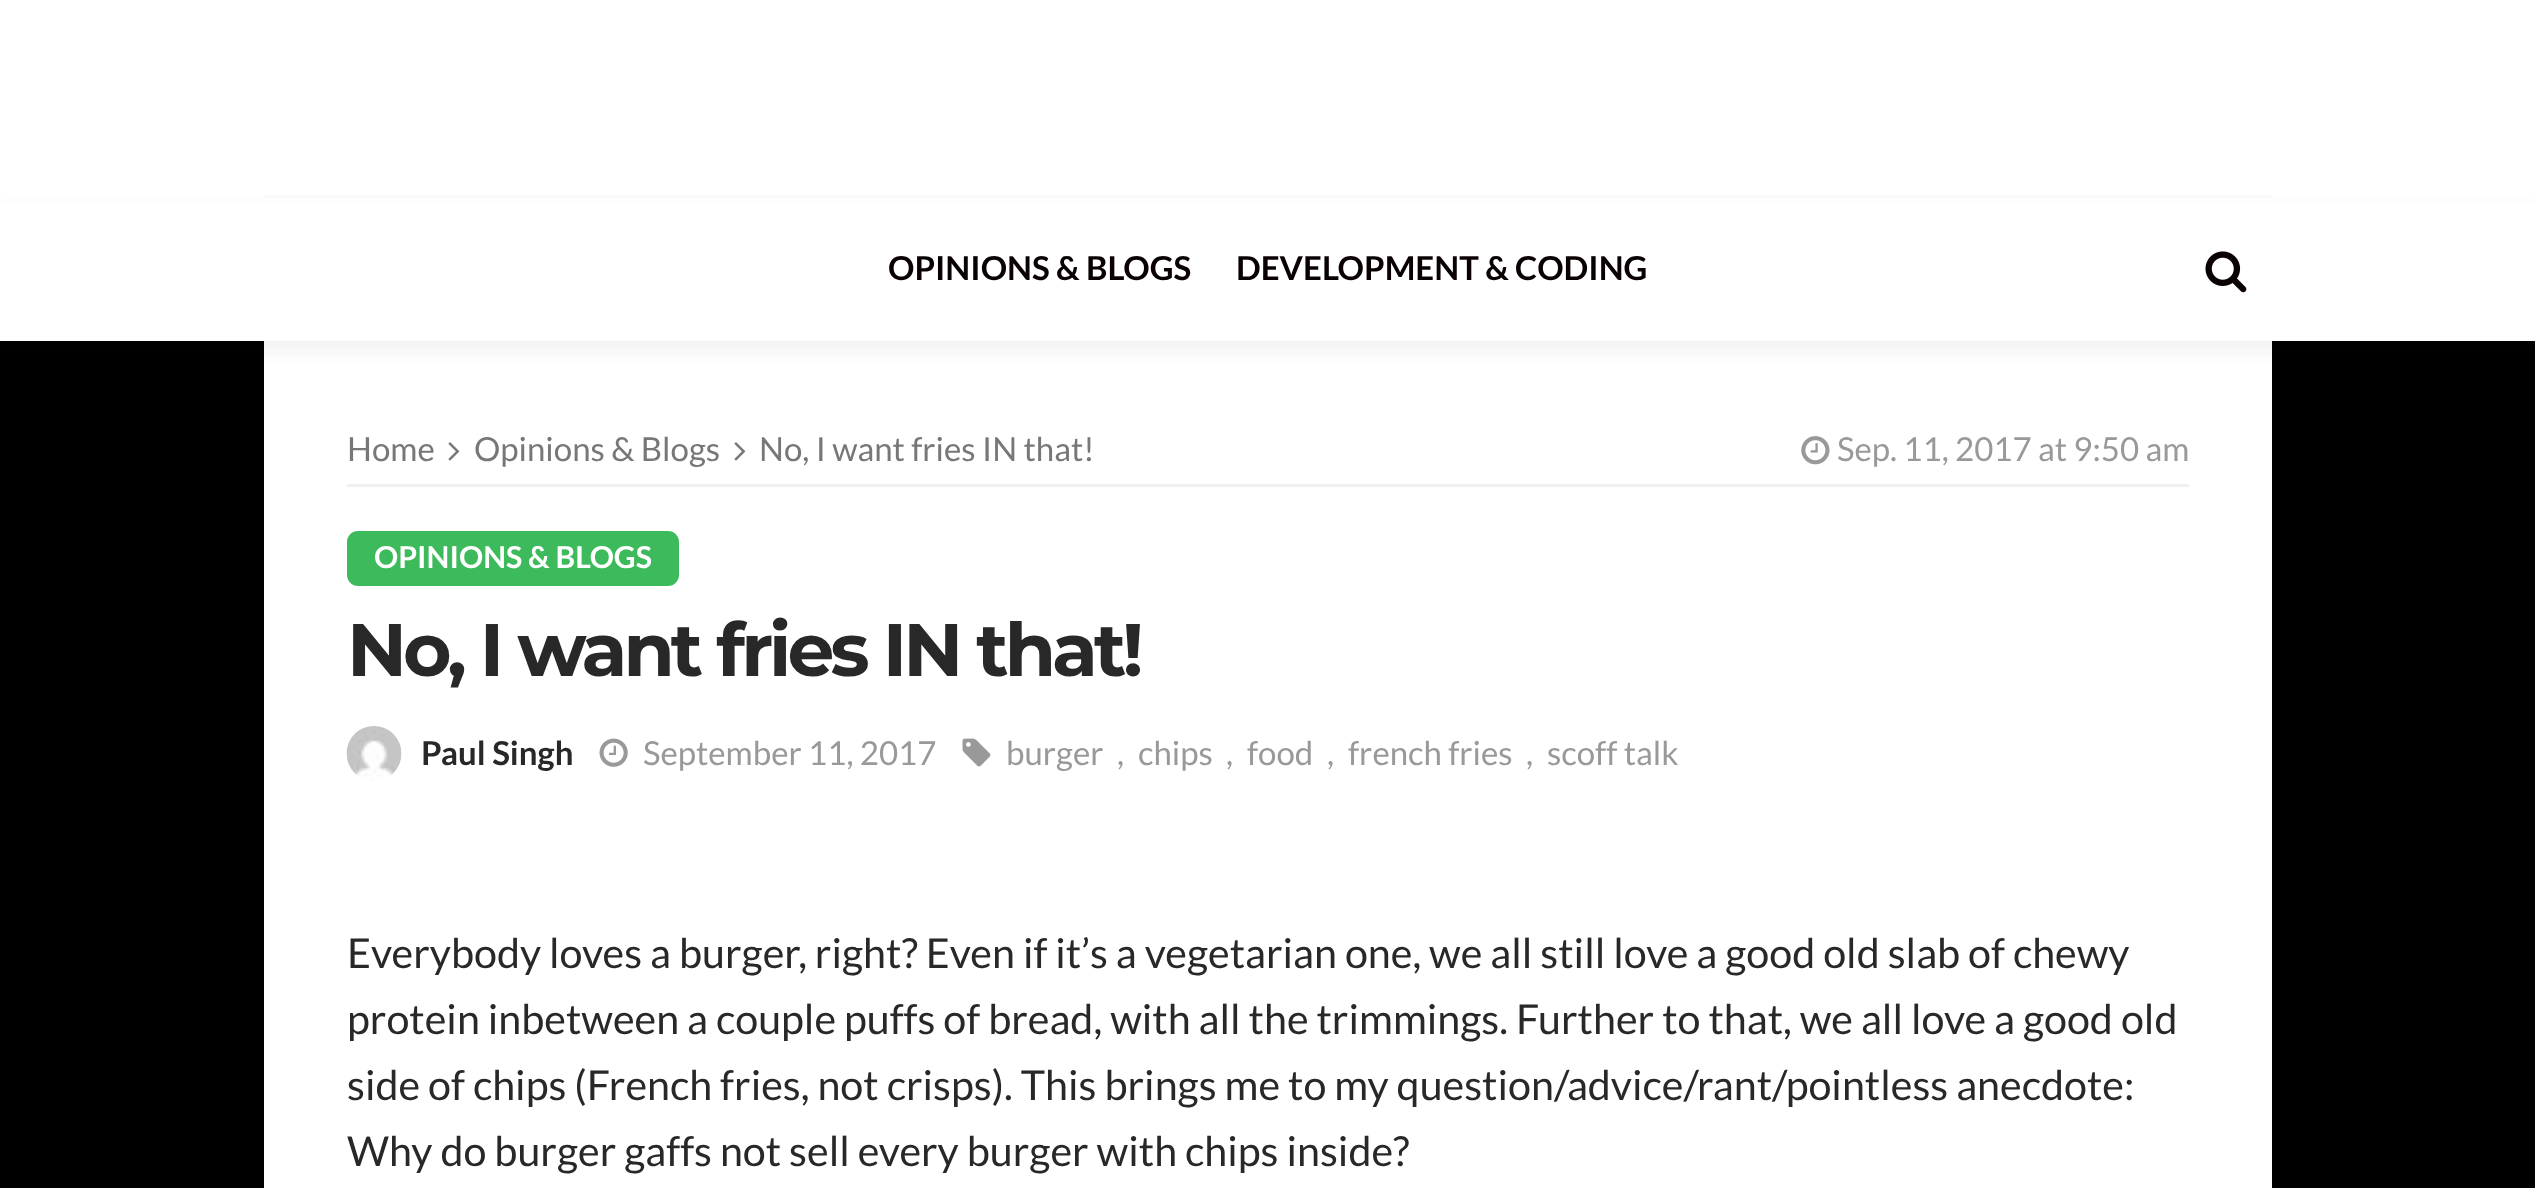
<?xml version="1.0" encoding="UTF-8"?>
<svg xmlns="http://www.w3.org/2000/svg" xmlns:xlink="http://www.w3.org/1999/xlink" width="2535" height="1188">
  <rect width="100%" height="100%" fill="#ffffff" />
  <rect x="264" y="195" width="2008" height="3" fill="#fafafa" />
  <rect y="341" width="2535" height="847" fill="#000000" />
  <rect x="264" y="341" width="2008" height="847" fill="#ffffff" />
  <rect y="209" width="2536" height="143" fill="#1c1c1c" fill-opacity="0.05" filter="blur(8px)" />
  <rect y="203" width="2535" height="138" fill="#ffffff" />
  <image x="2205" y="251" width="42" height="42" xlink:href="image1.png" />
  <rect x="347" y="484" width="1842" height="3" fill="#efefef" />
  <image x="448" y="442" width="12" height="19" xlink:href="image2.png" />
  <image x="734" y="442" width="12" height="19" xlink:href="image2.png" />
  <image x="1801" y="436" width="29" height="29" xlink:href="image3.png" />
  <rect x="347" y="531" width="332" height="55" rx="11" fill="#3dba5b" />
  <image x="346" y="726" width="56" height="55" xlink:href="image4.png" />
  <image x="599" y="738" width="29" height="29" xlink:href="image5.png" />
  <image x="962" y="738" width="29" height="29" xlink:href="image6.png" />
  <text x="888" y="280" style="font-family: Lato; font-size: 33px; font-weight: bold; fill: #0a0202">OPINIONS &amp; BLOGS</text>
  <text x="1236" y="280" style="font-family: Lato; font-size: 33px; font-weight: bold; fill: #0a0202">DEVELOPMENT &amp; CODING</text>
  <text x="347" y="461" style="font-family: Lato; font-size: 33px; fill: #777777">Home</text>
  <text x="474" y="461" style="font-family: Lato; font-size: 33px; fill: #777777">Opinions &amp; Blogs</text>
  <text x="759" y="461" style="font-family: Lato; font-size: 33px; fill: #777777">No, I want fries IN that!</text>
  <text x="1837" y="461" style="font-family: Lato; font-size: 33px; fill: #999999">Sep. 11, 2017 at 9:50 am</text>
  <text x="374" y="568" style="font-family: Lato; font-size: 30.25px; font-weight: bold; fill: #ffffff">OPINIONS &amp; BLOGS</text>
  <text x="347" y="676" style="font-family: Montserrat; font-size: 74.25px; font-weight: 100; letter-spacing: -3.95px; fill: #282828">No, I want fries IN that!</text>
  <text x="421" y="765" style="font-family: Lato; font-size: 33px; font-weight: bold; fill: #282828">Paul Singh</text>
  <text x="643" y="765" style="font-family: Lato; font-size: 33px; fill: #999999">September 11, 2017</text>
  <text x="1006" y="765" style="font-family: Lato; font-size: 33px; fill: #999999">burger</text>
  <text x="1117" y="765" style="font-family: Lato; font-size: 33px; fill: #999999">,</text>
  <text x="1138" y="765" style="font-family: Lato; font-size: 33px; fill: #999999">chips</text>
  <text x="1226" y="765" style="font-family: Lato; font-size: 33px; fill: #999999">,</text>
  <text x="1247" y="765" style="font-family: Lato; font-size: 33px; fill: #999999">food</text>
  <text x="1327" y="765" style="font-family: Lato; font-size: 33px; fill: #999999">,</text>
  <text x="1348" y="765" style="font-family: Lato; font-size: 33px; fill: #999999">french fries</text>
  <text x="1526" y="765" style="font-family: Lato; font-size: 33px; fill: #999999">,</text>
  <text x="1547" y="765" style="font-family: Lato; font-size: 33px; fill: #999999">scoff talk</text>
  <text x="347" y="968" style="font-family: Lato; font-size: 41.25px; fill: #282828">Everybody loves a burger, right? Even if it’s a vegetarian one, we all still love a good old slab of chewy</text>
  <text x="347" y="1034" style="font-family: Lato; font-size: 41.25px; fill: #282828">protein inbetween a couple puffs of bread, with all the trimmings. Further to that, we all love a good old</text>
  <text x="347" y="1100" style="font-family: Lato; font-size: 41.25px; fill: #282828">side of chips (French fries, not crisps). This brings me to my question/advice/rant/pointless anecdote:</text>
  <text x="347" y="1166" style="font-family: Lato; font-size: 41.25px; fill: #282828">Why do burger gaffs not sell every burger with chips inside?</text>
</svg>
